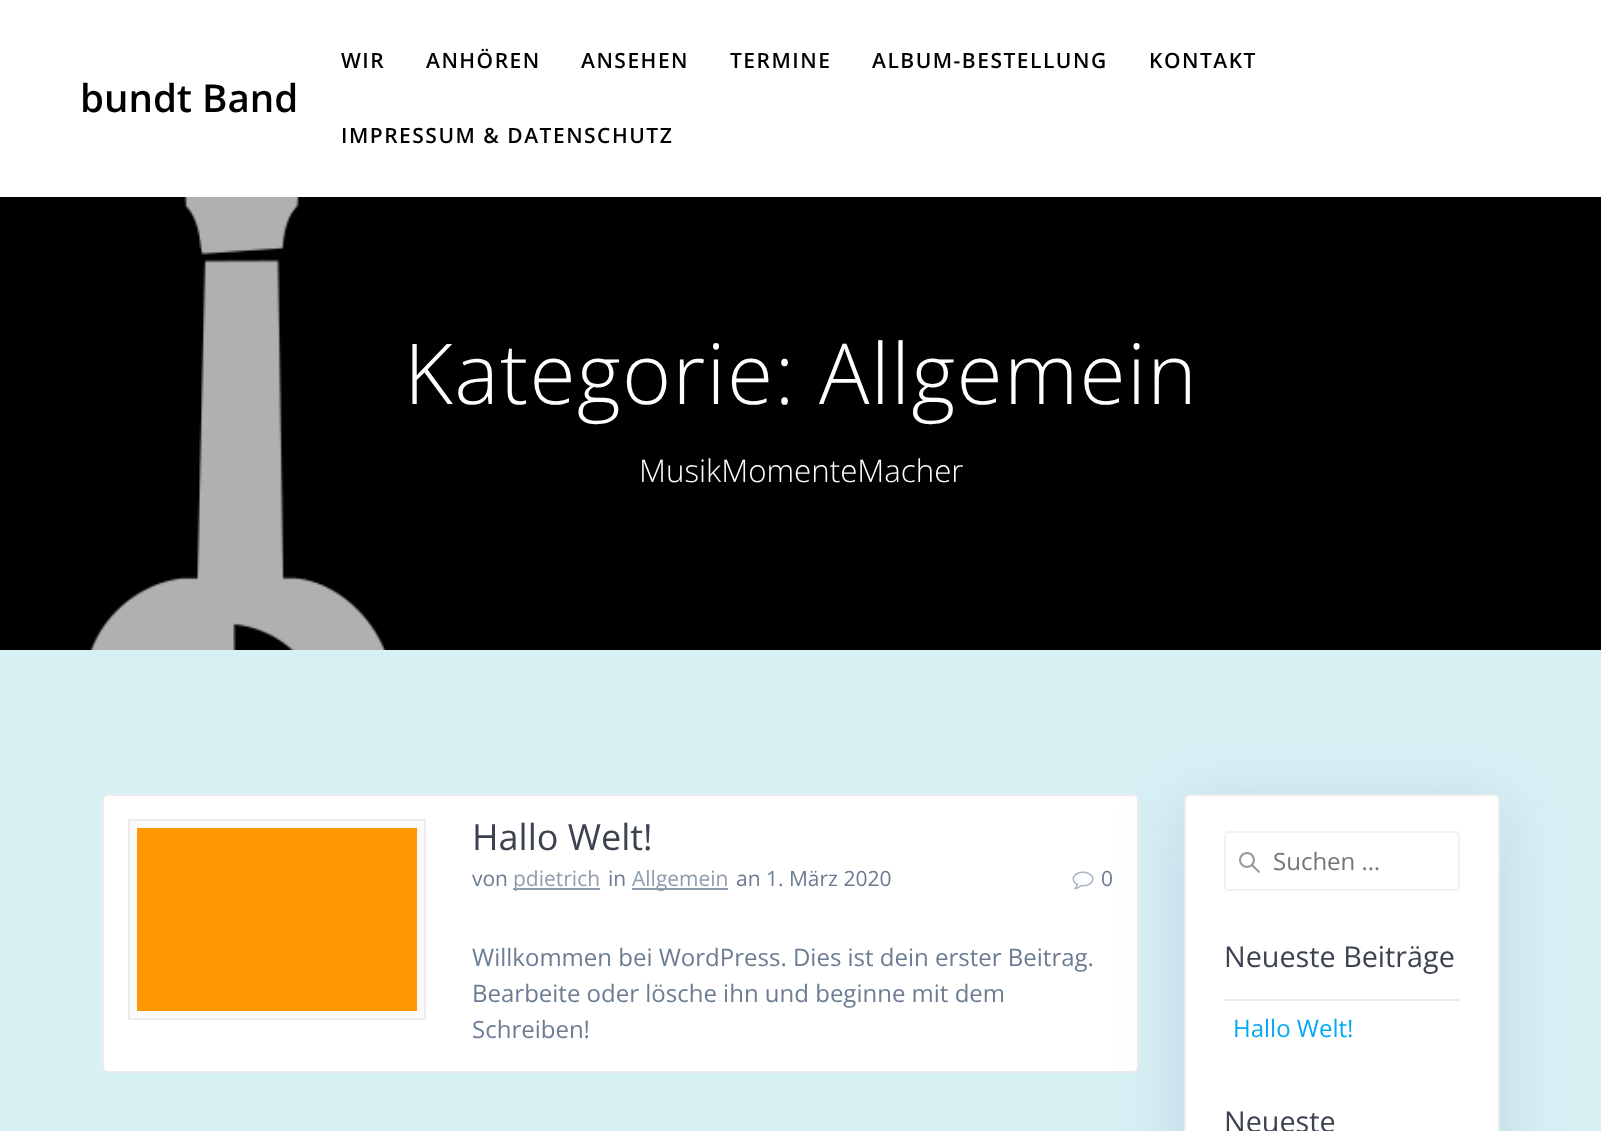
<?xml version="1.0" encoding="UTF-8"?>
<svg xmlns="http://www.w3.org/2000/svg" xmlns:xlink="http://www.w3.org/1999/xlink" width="1601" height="1131">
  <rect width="100%" height="100%" fill="#d7f0f4" />
  <rect width="1601" height="197" fill="#ffffff" />
  <rect y="197" width="1601" height="453" fill="#000000" />
  <image x="90" y="197" width="296" height="453" xlink:href="image1.png" />
  <rect x="103" y="795" width="1035" height="277" rx="5" fill="#ffffff" stroke="#ececec" stroke-width="2" />
  <rect x="129" y="820" width="296" height="199" fill="#fafafa" stroke="#ececec" stroke-width="2" />
  <rect x="137" y="828" width="280" height="183" fill="#ff9800" />
  <rect x="513" y="888" width="87" height="2" fill="#8e9dae" />
  <rect x="632" y="888" width="96" height="2" fill="#8e9dae" />
  <image x="1072" y="871" width="22" height="19" xlink:href="image2.png" />
  <rect x="1184" y="807" width="316" height="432" rx="6" fill="#234598" fill-opacity="0.15" filter="blur(34px)" />
  <rect x="1185" y="795" width="314" height="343" rx="5" fill="#ffffff" stroke="#ececec" stroke-width="2" />
  <image x="1239" y="852" width="21" height="21" xlink:href="image3.png" />
  <rect x="1225" y="832" width="234" height="58" rx="4" fill="none" stroke="#f1f1f1" stroke-width="2" />
  <rect x="1224" y="999" width="236" height="2" fill="#ececec" />
  <text x="80" y="112" style="font-family: Open Sans; font-size: 38.5px; font-weight: 600; fill: #000000">bundt Band</text>
  <text x="341" y="68" style="font-family: Open Sans; font-size: 21px; font-weight: 600; letter-spacing: 1.5px; fill: #000000">WIR</text>
  <text x="426" y="68" style="font-family: Open Sans; font-size: 21px; font-weight: 600; letter-spacing: 1.5px; fill: #000000">ANHÖREN</text>
  <text x="581" y="68" style="font-family: Open Sans; font-size: 21px; font-weight: 600; letter-spacing: 1.5px; fill: #000000">ANSEHEN</text>
  <text x="730" y="68" style="font-family: Open Sans; font-size: 21px; font-weight: 600; letter-spacing: 1.5px; fill: #000000">TERMINE</text>
  <text x="872" y="68" style="font-family: Open Sans; font-size: 21px; font-weight: 600; letter-spacing: 1.5px; fill: #000000">ALBUM-BESTELLUNG</text>
  <text x="1149" y="68" style="font-family: Open Sans; font-size: 21px; font-weight: 600; letter-spacing: 1.5px; fill: #000000">KONTAKT</text>
  <text x="341" y="143" style="font-family: Open Sans; font-size: 21px; font-weight: 600; letter-spacing: 1.5px; fill: #000000">IMPRESSUM &amp; DATENSCHUTZ</text>
  <text x="404" y="404" style="font-family: Open Sans; font-size: 84px; font-weight: 300; letter-spacing: 1.35px; fill: #ffffff">Kategorie: Allgemein</text>
  <text x="639" y="482" style="font-family: Open Sans; font-size: 31.25px; font-weight: 300; fill: #ffffff">MusikMomenteMacher</text>
  <text x="472" y="850" style="font-family: Open Sans; font-size: 36px; fill: #3c424f">Hallo Welt!</text>
  <text x="472" y="886" style="font-family: Open Sans; font-size: 21px; fill: #6b7c93">von</text>
  <text x="513" y="886" style="font-family: Open Sans; font-size: 21px; fill: #8e9dae">pdietrich</text>
  <text x="608" y="886" style="font-family: Open Sans; font-size: 21px; fill: #6b7c93">in</text>
  <text x="632" y="886" style="font-family: Open Sans; font-size: 21px; fill: #8e9dae">Allgemein</text>
  <text x="736" y="886" style="font-family: Open Sans; font-size: 21px; fill: #6b7c93">an 1. März 2020</text>
  <text x="1101" y="886" style="font-family: Open Sans; font-size: 21px; fill: #6b7c93">0</text>
  <text x="472" y="966" style="font-family: Open Sans; font-size: 24px; fill: #6b7c93">Willkommen bei WordPress. Dies ist dein erster Beitrag.</text>
  <text x="472" y="1002" style="font-family: Open Sans; font-size: 24px; fill: #6b7c93">Bearbeite oder lösche ihn und beginne mit dem</text>
  <text x="472" y="1038" style="font-family: Open Sans; font-size: 24px; fill: #6b7c93">Schreiben!</text>
  <text x="1273" y="870" style="font-family: Open Sans; font-size: 24px; fill: #757575">Suchen …</text>
  <text x="1224" y="967" style="font-family: Open Sans; font-size: 28.75px; fill: #3c424f">Neueste Beiträge</text>
  <text x="1233" y="1037" style="font-family: Open Sans; font-size: 24px; fill: #03a9f4">Hallo Welt!</text>
  <text x="1224" y="1132" style="font-family: Open Sans; font-size: 28.75px; fill: #3c424f">Neueste</text>
</svg>
